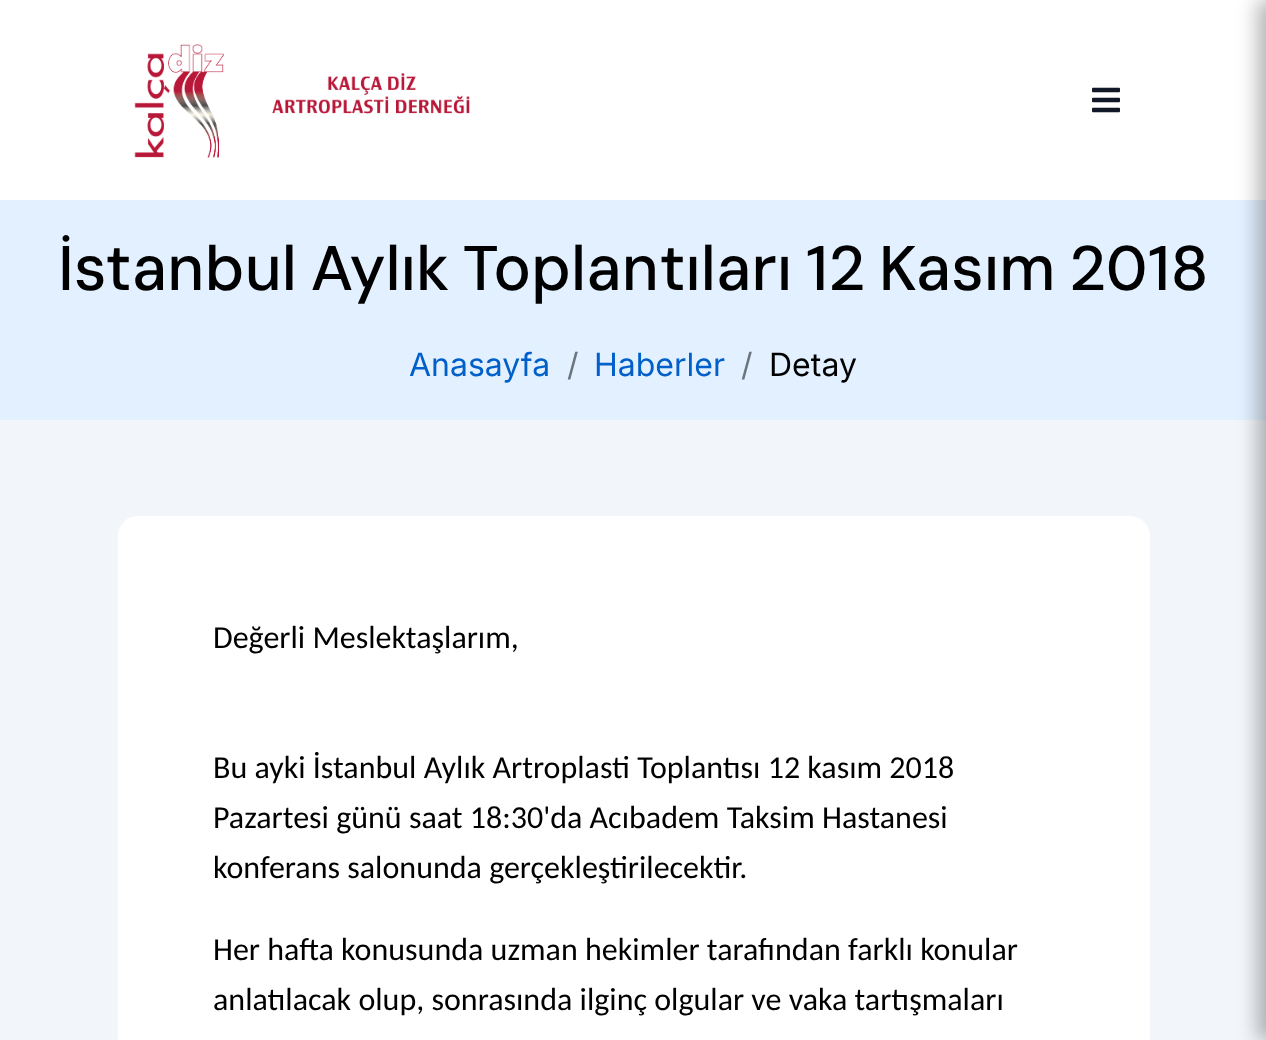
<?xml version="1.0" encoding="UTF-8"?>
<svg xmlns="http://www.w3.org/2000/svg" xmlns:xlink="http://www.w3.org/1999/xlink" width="1266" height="1040">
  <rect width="100%" height="100%" fill="#ffffff" />
  <image x="134" y="44" width="336" height="114" xlink:href="image1.png" />
  <image x="1092" y="87" width="28" height="26" xlink:href="image2.png" />
  <rect y="200" width="1266" height="220" fill="#e2f0ff" />
  <rect y="420" width="1266" height="620" fill="#f2f5f9" />
  <rect x="1258" width="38" height="1040" fill="#000000" fill-opacity="0.3" filter="blur(10px)" />
  <rect x="118" y="516" width="1032" height="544" rx="20" fill="#ffffff" />
  <text x="58" y="290" word-spacing="-3" style="font-family: DM Sans; font-size: 63px; font-weight: 500; fill: #000000">İstanbul Aylık Toplantıları 12 Kasım 2018</text>
  <text x="409" y="376" style="font-family: Inter; font-size: 32px; fill: #015fc9">Anasayfa</text>
  <text x="567" y="376" style="font-family: Inter; font-size: 32px; fill: #6c757d">/</text>
  <text x="594" y="376" style="font-family: Inter; font-size: 32px; fill: #015fc9">Haberler</text>
  <text x="741" y="376" style="font-family: Inter; font-size: 32px; fill: #6c757d">/</text>
  <text x="769" y="376" style="font-family: Inter; font-size: 32px; fill: #000000">Detay</text>
  <text x="213" y="648" style="font-family: Carlito; font-size: 32px; fill: #000000">Değerli Meslektaşlarım,</text>
  <text x="213" y="778" style="font-family: Carlito; font-size: 32px; fill: #000000">Bu ayki İstanbul Aylık Artroplasti Toplantısı 12 kasım 2018</text>
  <text x="213" y="828" style="font-family: Carlito; font-size: 32px; fill: #000000">Pazartesi günü saat 18:30'da Acıbadem Taksim Hastanesi</text>
  <text x="213" y="878" style="font-family: Carlito; font-size: 32px; fill: #000000">konferans salonunda gerçekleştirilecektir.</text>
  <text x="213" y="960" style="font-family: Carlito; font-size: 32px; fill: #000000">Her hafta konusunda uzman hekimler tarafından farklı konular</text>
  <text x="213" y="1010" style="font-family: Carlito; font-size: 32px; fill: #000000">anlatılacak olup, sonrasında ilginç olgular ve vaka tartışmaları</text>
</svg>
